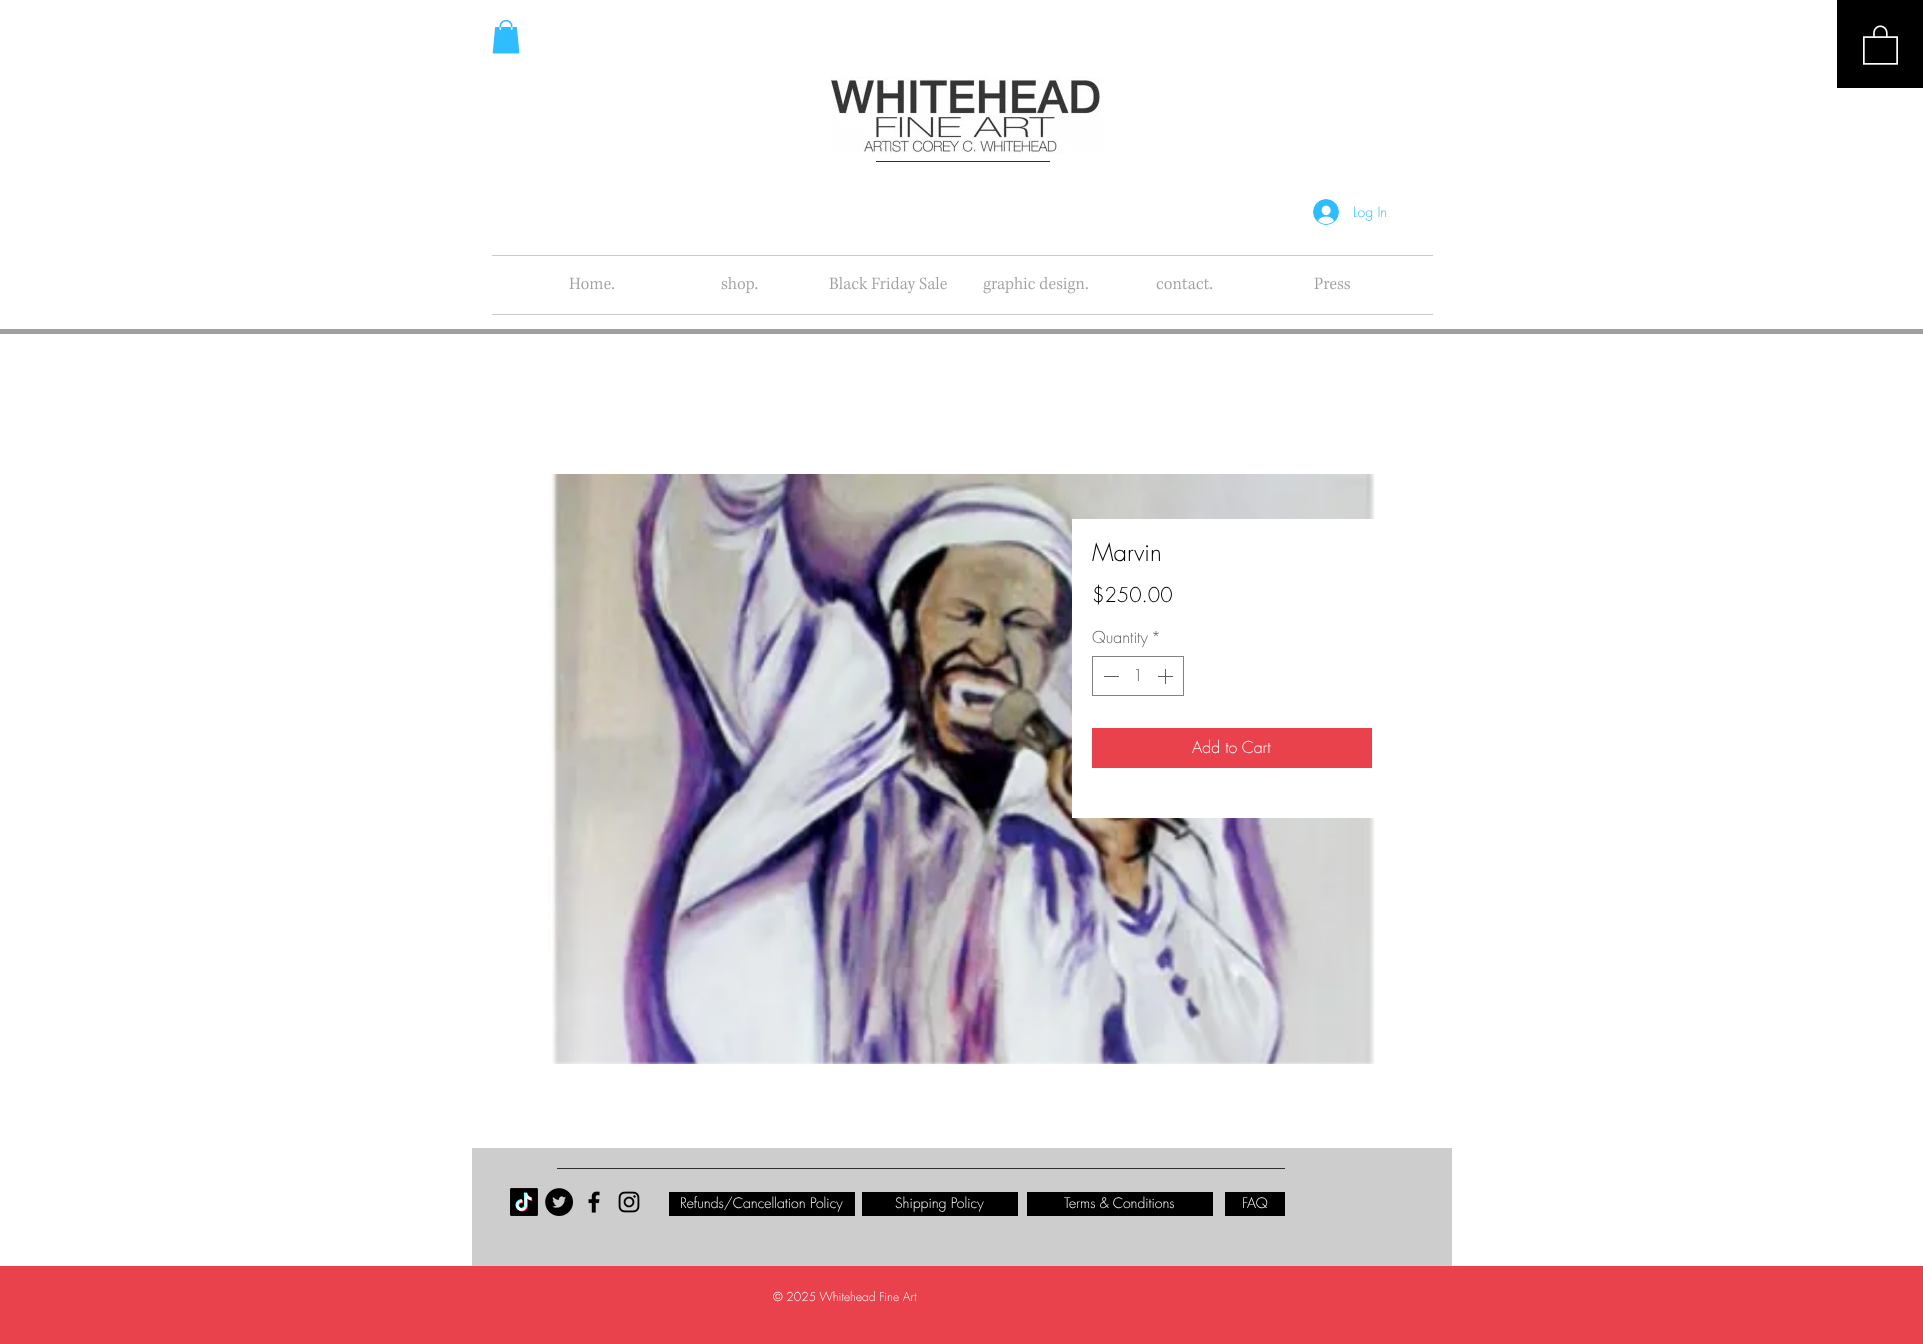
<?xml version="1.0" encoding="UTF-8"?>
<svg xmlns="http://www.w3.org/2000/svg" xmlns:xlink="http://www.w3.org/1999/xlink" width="1923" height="1344">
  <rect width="100%" height="100%" fill="#ffffff" />
  <rect x="1837" width="86" height="88" fill="#000000" />
  <image x="1863" y="25" width="35" height="40" xlink:href="image1.png" />
  <image x="492" y="20" width="28" height="34" xlink:href="image2.png" />
  <image x="831" y="77" width="272" height="77" xlink:href="image3.png" />
  <rect x="876" y="161" width="174" height="1" fill="#2f2e2e" />
  <image x="1313" y="199" width="26" height="26" xlink:href="image4.png" />
  <rect x="492" y="255" width="941" height="1" fill="#cacaca" />
  <rect x="492" y="314" width="941" height="1" fill="#cacaca" />
  <image x="569" y="277" width="45" height="13" xlink:href="image5.png" />
  <image x="721" y="277" width="37" height="17" xlink:href="image6.png" />
  <image x="829" y="277" width="118" height="17" xlink:href="image7.png" />
  <image x="983" y="277" width="105" height="17" xlink:href="image8.png" />
  <image x="1156" y="278" width="56" height="12" xlink:href="image9.png" />
  <image x="1314" y="277" width="36" height="13" xlink:href="image10.png" />
  <rect y="329" width="1923" height="5" fill="#a0a09f" />
  <image x="548" y="474" width="827" height="590" xlink:href="image11.png" />
  <rect x="1072" y="519" width="303" height="299" fill="#ffffff" />
  <rect x="1092.5" y="656.5" width="91" height="39" fill="none" stroke="#828282" />
  <rect x="1104" y="676" width="15" height="1" fill="#605e5e" />
  <image x="1158" y="669" width="15" height="15" xlink:href="image12.png" />
  <rect x="1092" y="728" width="280" height="40" fill="#ea424d" />
  <rect x="472" y="1148" width="980" height="118" fill="#cdcdcd" />
  <rect x="557" y="1168" width="728" height="1" fill="#2f2e2e" />
  <image x="510" y="1188" width="28" height="28" xlink:href="image13.png" />
  <image x="545" y="1188" width="28" height="28" xlink:href="image14.png" />
  <image x="588" y="1191" width="12" height="22" xlink:href="image15.png" />
  <image x="618" y="1191" width="22" height="22" xlink:href="image16.png" />
  <rect x="669" y="1192" width="186" height="24" fill="#000000" />
  <rect x="862" y="1192" width="156" height="24" fill="#000000" />
  <rect x="1027" y="1192" width="186" height="24" fill="#000000" />
  <rect x="1225" y="1192" width="60" height="24" fill="#000000" />
  <rect y="1266" width="1923" height="78" fill="#ea424d" />
  <text x="1353" y="217" style="font-family: futura; font-size: 14px; font-weight: 300; fill: #30bdff">Log In</text>
  <text x="1092" y="561" style="font-family: futura; font-size: 24px; font-weight: 300; fill: #000000">Marvin</text>
  <text x="1092" y="602" style="font-family: futura; font-size: 20px; font-weight: 300; fill: #000000">$250.00</text>
  <text x="1092" y="643" style="font-family: futura; font-size: 16px; font-weight: 300; fill: #605e5e">Quantity</text>
  <text x="1151" y="643" style="font-family: futura; font-size: 16px; font-weight: 300; fill: #605e5e">*</text>
  <text x="1133" y="681" style="font-family: futura; font-size: 16px; font-weight: 300; fill: #605e5e">1</text>
  <text x="1192" y="753" style="font-family: futura; font-size: 16px; font-weight: 300; fill: #ffffff">Add to Cart</text>
  <text x="680" y="1208" style="font-family: futura; font-size: 14px; font-weight: 300; fill: #ffffff">Refunds/Cancellation Policy</text>
  <text x="895" y="1208" style="font-family: futura; font-size: 14px; font-weight: 300; fill: #ffffff">Shipping Policy</text>
  <text x="1064" y="1208" style="font-family: futura; font-size: 14px; font-weight: 300; fill: #ffffff">Terms &amp; Conditions</text>
  <text x="1242" y="1208" style="font-family: futura; font-size: 14px; font-weight: 300; fill: #ffffff">FAQ</text>
  <text x="773" y="1301" style="font-family: futura; font-size: 12px; font-weight: 300; fill: #ffffff">© 2025 Whitehead Fine Art</text>
</svg>
